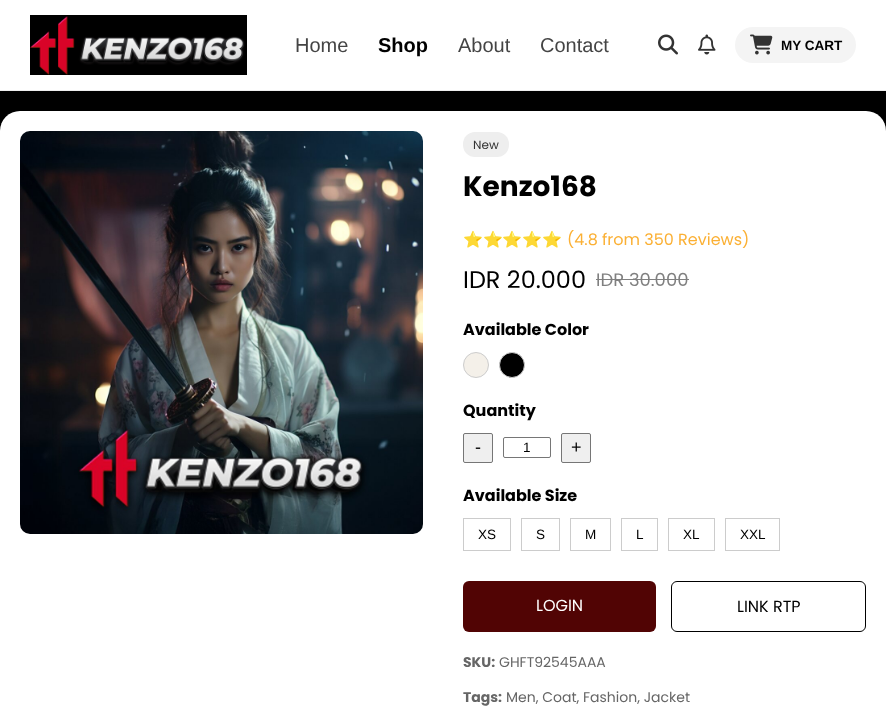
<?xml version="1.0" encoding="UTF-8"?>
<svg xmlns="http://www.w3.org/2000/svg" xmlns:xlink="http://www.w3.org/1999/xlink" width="886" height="723">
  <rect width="100%" height="100%" fill="#000000" />
  <rect width="886" height="90" fill="#ffffff" />
  <rect y="90" width="886" height="1" fill="#eeeeee" />
  <rect x="30" y="15" width="217" height="60" fill="#000000" />
  <image x="30" y="16" width="215" height="59" xlink:href="image1.png" />
  <image x="658" y="34" width="20" height="21" xlink:href="image2.png" />
  <image x="698" y="34" width="18" height="21" xlink:href="image3.png" />
  <rect x="735" y="27" width="121" height="36" rx="18" fill="#f4f4f4" />
  <image x="750" y="34" width="23" height="21" xlink:href="image4.png" />
  <rect y="111" width="886" height="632" rx="20" fill="#ffffff" />
  <image x="20" y="131" width="403" height="403" xlink:href="image5.png" />
  <rect x="463" y="132" width="46" height="25" rx="12" fill="#eeeeee" />
  <rect x="596" y="279" width="93" height="1" fill="#808080" />
  <circle cx="476" cy="365" r="12.5" fill="#f4f0e9" stroke="#cccccc" />
  <circle cx="512" cy="365" r="12.5" fill="#000000" stroke="#cccccc" />
  <rect x="463.5" y="433.5" width="29" height="29" rx="1.5" fill="#efefef" stroke="#767676" />
  <rect x="503.5" y="437.5" width="47" height="20" rx="1.5" fill="none" stroke="#767676" />
  <rect x="561.5" y="433.5" width="29" height="29" rx="1.5" fill="#efefef" stroke="#767676" />
  <rect x="463.5" y="518.5" width="47" height="32" fill="none" stroke="#cccccc" />
  <rect x="521.5" y="518.5" width="38" height="32" fill="none" stroke="#cccccc" />
  <rect x="570.5" y="518.5" width="40" height="32" fill="none" stroke="#cccccc" />
  <rect x="621.5" y="518.5" width="36" height="32" fill="none" stroke="#cccccc" />
  <rect x="668.5" y="518.5" width="46" height="32" fill="none" stroke="#cccccc" />
  <rect x="725.5" y="518.5" width="54" height="32" fill="none" stroke="#cccccc" />
  <rect x="463" y="581" width="193" height="51" rx="6" fill="#510404" />
  <rect x="671.5" y="581.5" width="194" height="50" rx="5.5" fill="none" stroke="#000000" />
  <text x="295" y="52" style="font-family: Liberation Sans; font-size: 20px; fill: #444444">Home</text>
  <text x="378" y="52" style="font-family: Liberation Sans; font-size: 20px; font-weight: bold; fill: #000000">Shop</text>
  <text x="458" y="52" style="font-family: Liberation Sans; font-size: 20px; fill: #444444">About</text>
  <text x="540" y="52" style="font-family: Liberation Sans; font-size: 20px; fill: #444444">Contact</text>
  <text x="781" y="50" style="font-family: Liberation Sans; font-size: 13.5px; font-weight: bold; fill: #000000">MY CART</text>
  <text x="473" y="149" style="font-family: Poppins; font-size: 12px; fill: #333333">New</text>
  <text x="463" y="196" style="font-family: Poppins; font-size: 28px; font-weight: bold; fill: #000000">Kenzo168</text>
  <text x="463" y="245" style="font-family: Noto Color Emoji; font-size: 16px; fill: #fbb034">⭐⭐⭐⭐⭐</text>
  <text x="567" y="245" style="font-family: Poppins; font-size: 16px; fill: #fbb034">(4.8 from 350 Reviews)</text>
  <text x="463" y="288" style="font-family: Poppins; font-size: 24px; fill: #000000">IDR 20.000</text>
  <text x="596" y="286" style="font-family: Poppins; font-size: 18px; fill: #808080">IDR 30.000</text>
  <text x="463" y="335" style="font-family: Poppins; font-size: 16px; font-weight: bold; fill: #000000">Available Color</text>
  <text x="463" y="416" style="font-family: Poppins; font-size: 16px; font-weight: bold; fill: #000000">Quantity</text>
  <text x="475" y="453" style="font-family: Liberation Sans; font-size: 18px; fill: #000000">-</text>
  <text x="523" y="452" style="font-family: Liberation Sans; font-size: 13.5px; fill: #000000">1</text>
  <text x="571" y="453" style="font-family: Liberation Sans; font-size: 18px; fill: #000000">+</text>
  <text x="463" y="501" style="font-family: Poppins; font-size: 16px; font-weight: bold; fill: #000000">Available Size</text>
  <text x="478" y="539" style="font-family: Liberation Sans; font-size: 13.5px; fill: #000000">XS</text>
  <text x="536" y="539" style="font-family: Liberation Sans; font-size: 13.5px; fill: #000000">S</text>
  <text x="585" y="539" style="font-family: Liberation Sans; font-size: 13.5px; fill: #000000">M</text>
  <text x="636" y="539" style="font-family: Liberation Sans; font-size: 13.5px; fill: #000000">L</text>
  <text x="683" y="539" style="font-family: Liberation Sans; font-size: 13.5px; fill: #000000">XL</text>
  <text x="740" y="539" style="font-family: Liberation Sans; font-size: 13.5px; fill: #000000">XXL</text>
  <text x="536" y="611" style="font-family: Poppins; font-size: 16px; fill: #ffffff">LOGIN</text>
  <text x="737" y="612" style="font-family: Poppins; font-size: 16px; fill: #000000">LINK RTP</text>
  <text x="463" y="667" style="font-family: Poppins; font-size: 14px; font-weight: bold; fill: #666666">SKU:</text>
  <text x="499" y="667" style="font-family: Poppins; font-size: 14px; fill: #666666">GHFT92545AAA</text>
  <text x="463" y="702" style="font-family: Poppins; font-size: 14px; font-weight: bold; fill: #666666">Tags:</text>
  <text x="506" y="702" style="font-family: Poppins; font-size: 14px; fill: #666666">Men, Coat, Fashion, Jacket</text>
</svg>
